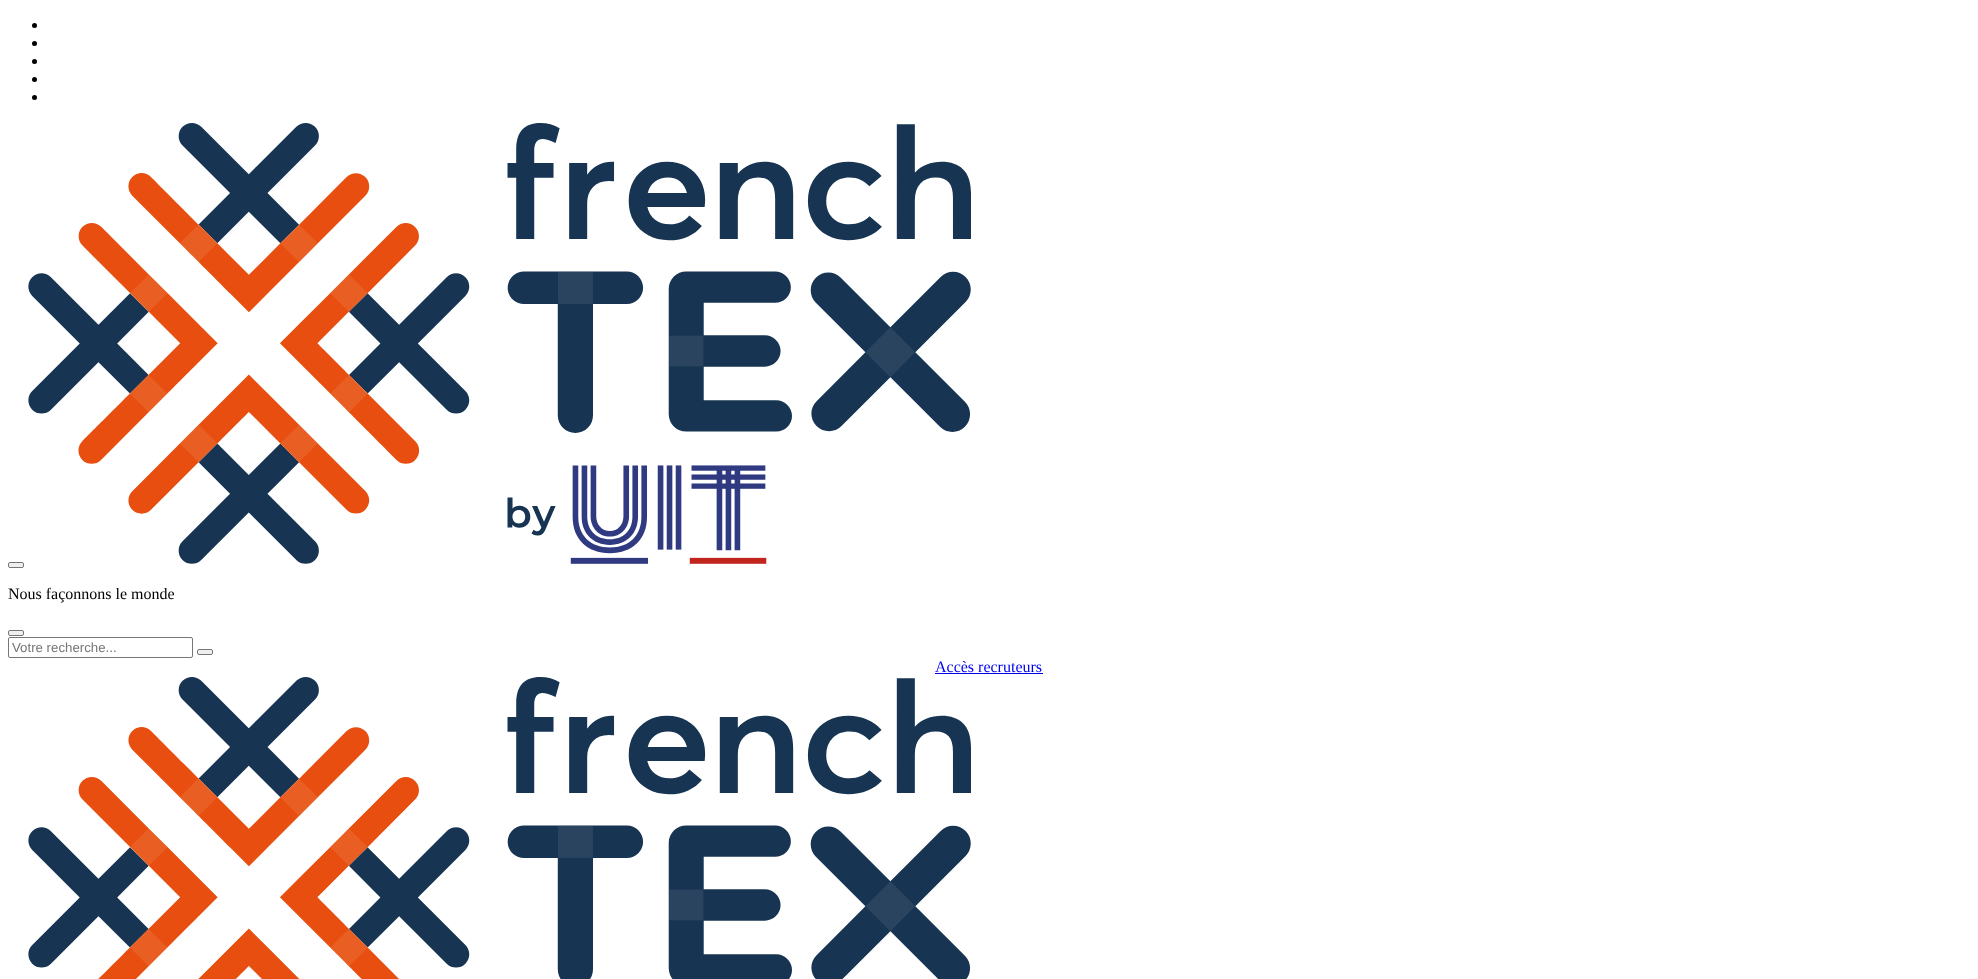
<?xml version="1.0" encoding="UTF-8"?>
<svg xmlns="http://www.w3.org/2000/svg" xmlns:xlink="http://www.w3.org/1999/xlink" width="1978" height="979">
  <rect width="100%" height="100%" fill="#ffffff" />
  <circle cx="34.5" cy="25.5" r="2.5" fill="#000000" />
  <circle cx="34.5" cy="43.5" r="2.5" fill="#000000" />
  <circle cx="34.5" cy="61.5" r="2.5" fill="#000000" />
  <circle cx="34.5" cy="79.5" r="2.5" fill="#000000" />
  <circle cx="34.5" cy="97.5" r="2.5" fill="#000000" />
  <image x="28" y="123" width="943" height="441" xlink:href="image1.png" />
  <rect x="8.5" y="562.5" width="15" height="5" rx="1.5" fill="#efefef" stroke="#767676" />
  <rect x="8.5" y="630.5" width="15" height="5" rx="1.5" fill="#efefef" stroke="#767676" />
  <rect x="8.5" y="637.5" width="184" height="20" rx="1.5" fill="none" stroke="#767676" />
  <rect x="197.5" y="649.5" width="15" height="5" rx="1.5" fill="#efefef" stroke="#767676" />
  <rect x="935" y="673" width="108" height="1" fill="#0000ee" />
  <image x="28" y="677" width="943" height="302" xlink:href="image2.png" />
  <text x="8" y="599" style="font-family: Liberation Serif; font-size: 16px; fill: #000000">Nous façonnons le monde</text>
  <text x="12" y="652" style="font-family: Liberation Sans; font-size: 13.25px; fill: #757575">Votre recherche...</text>
  <text x="935" y="672" style="font-family: Liberation Serif; font-size: 16px; fill: #0000ee">Accès recruteurs</text>
</svg>
